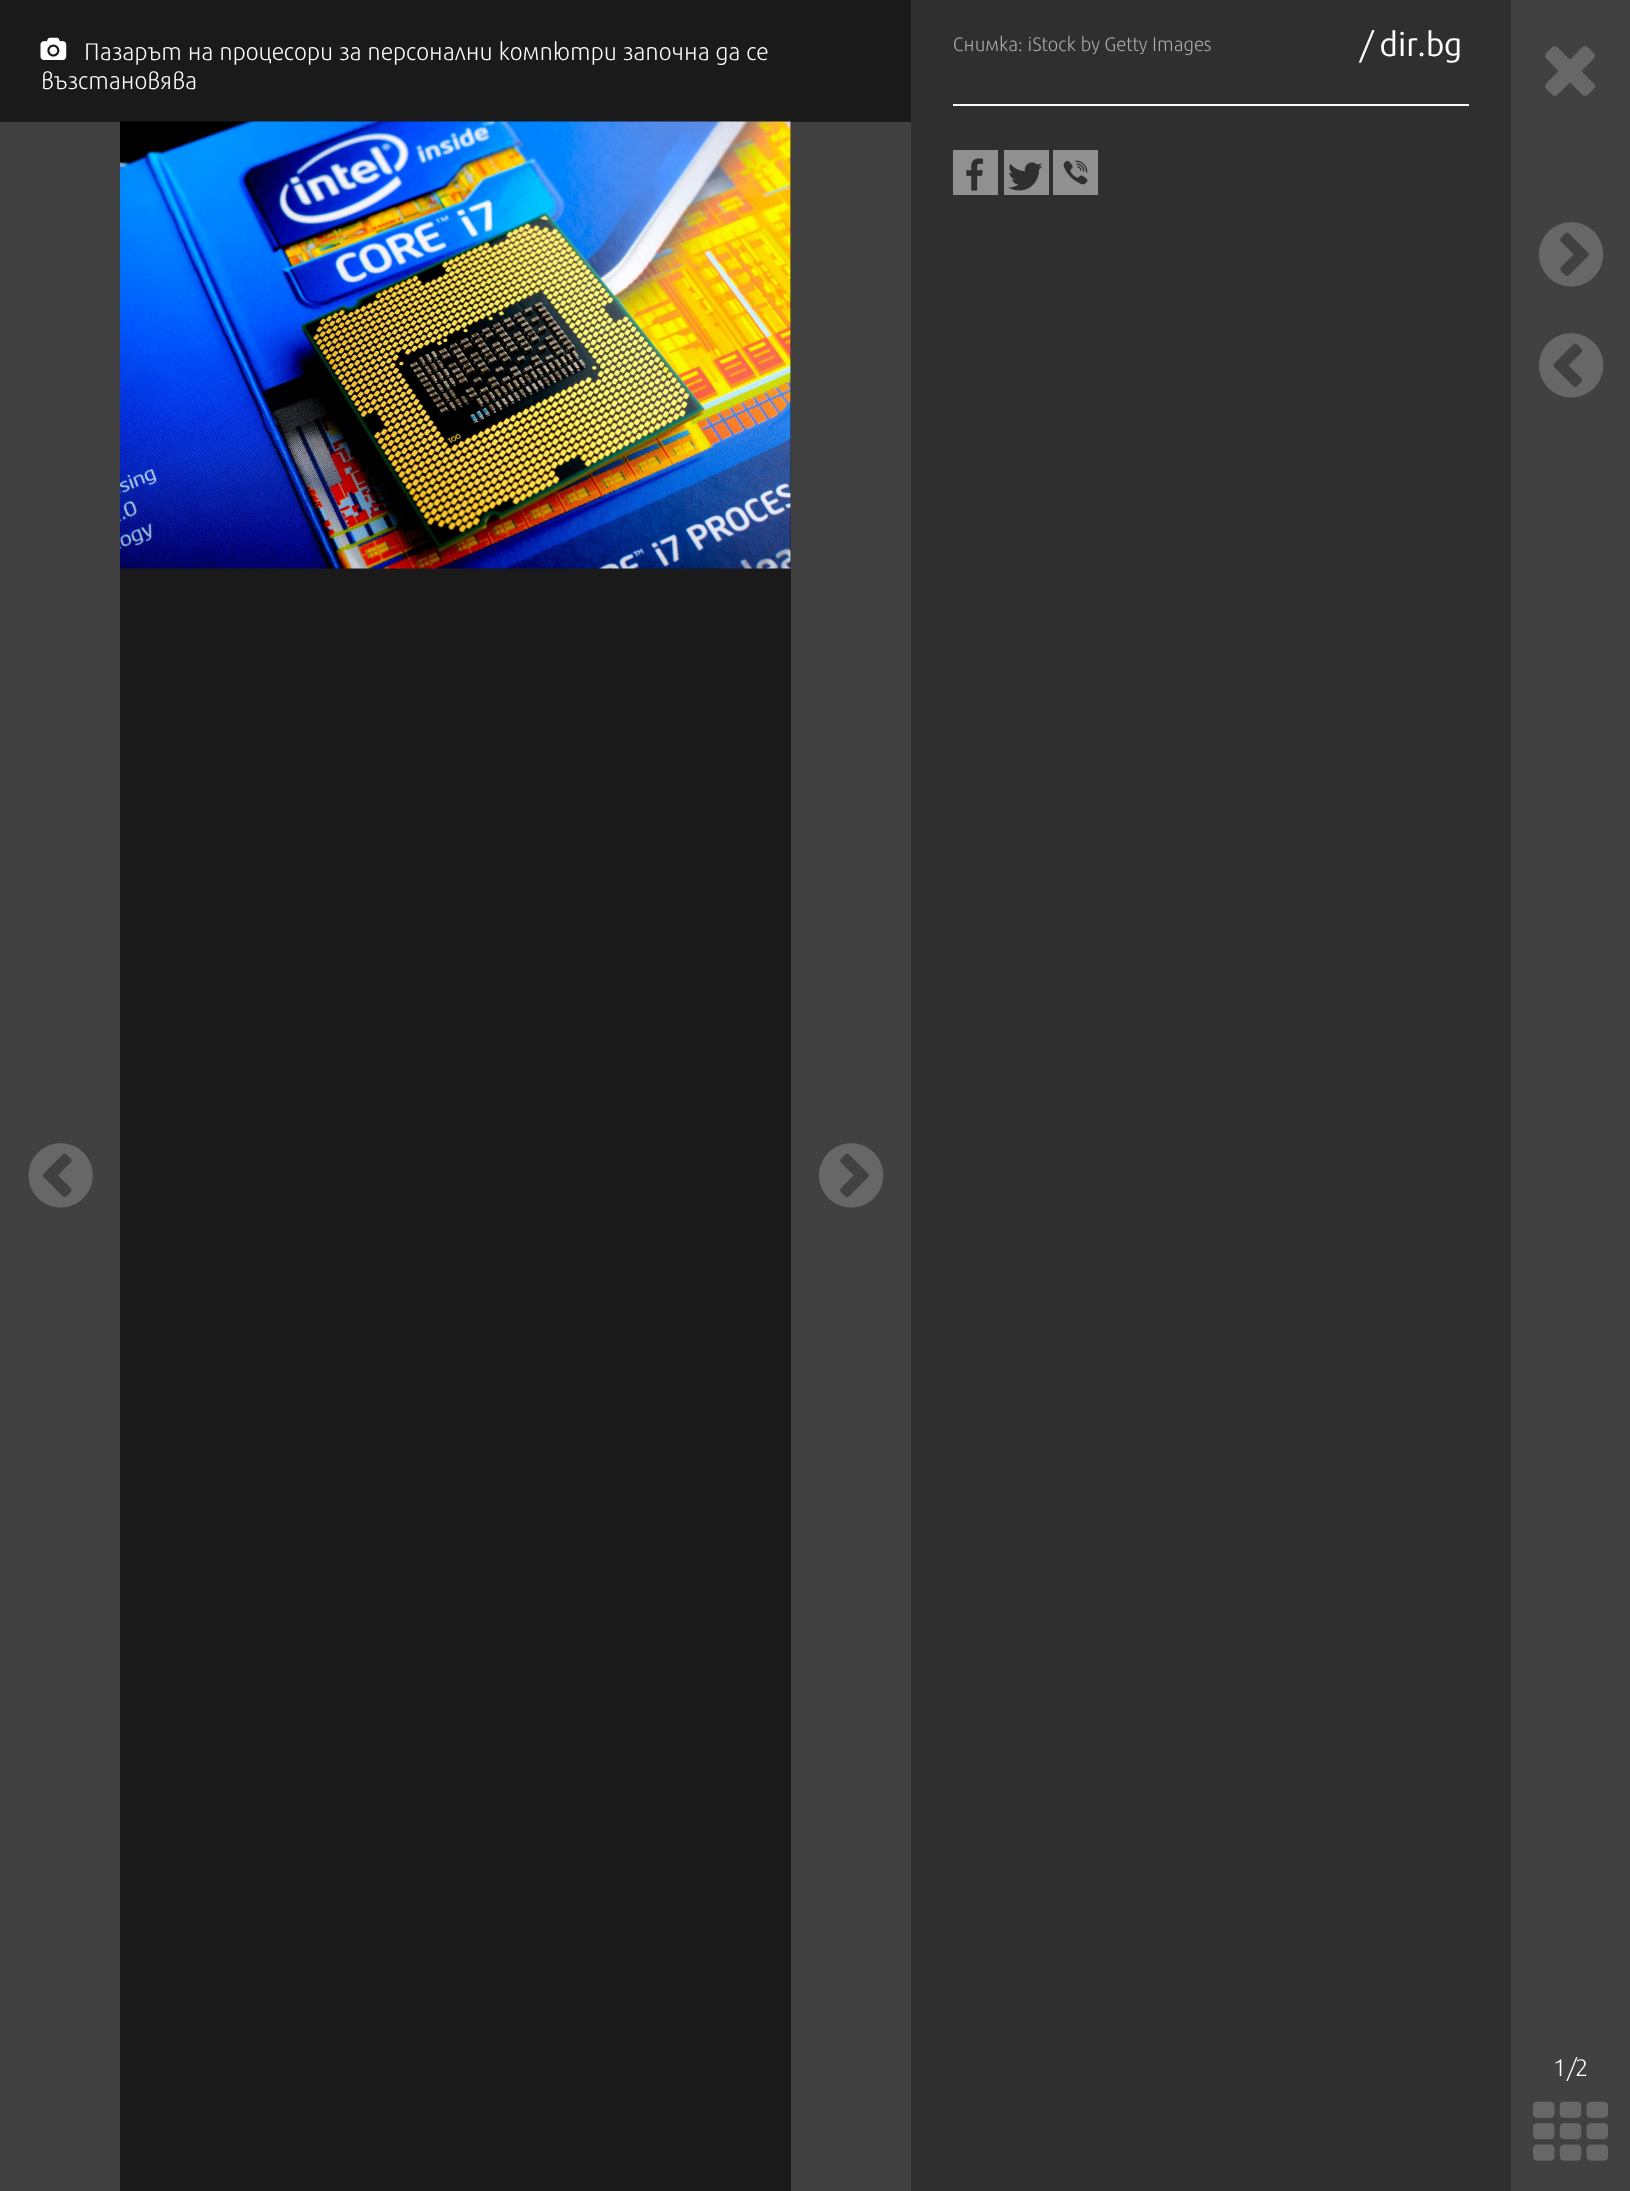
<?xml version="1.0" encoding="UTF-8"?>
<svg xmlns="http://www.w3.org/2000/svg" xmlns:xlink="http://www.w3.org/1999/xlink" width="1630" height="2191">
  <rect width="100%" height="100%" fill="#1a1a1a" />
  <image x="40" y="37" width="27" height="23" xlink:href="image1.png" />
  <rect y="122" width="120" height="2069" fill="#414141" />
  <image x="28" y="1143" width="65" height="65" xlink:href="image2.png" />
  <image x="120" y="121" width="671" height="448" xlink:href="image3.png" />
  <rect x="791" y="122" width="120" height="2069" fill="#414141" />
  <image x="819" y="1143" width="65" height="65" xlink:href="image4.png" />
  <rect x="911" width="600" height="2191" fill="#2f2f2f" />
  <rect x="953" y="104" width="516" height="2" fill="#ffffff" />
  <rect x="953" y="150" width="45" height="45" fill="#909090" />
  <image x="966" y="158" width="17" height="33" xlink:href="image5.png" />
  <rect x="1004" y="150" width="45" height="45" fill="#909090" />
  <image x="1008" y="162" width="35" height="29" xlink:href="image6.png" />
  <rect x="1053" y="150" width="45" height="45" fill="#909090" />
  <image x="1063" y="160" width="25" height="25" xlink:href="image7.png" />
  <rect x="1511" width="119" height="2191" fill="#414141" />
  <image x="1545" y="46" width="50" height="50" xlink:href="image8.png" />
  <image x="1539" y="222" width="65" height="65" xlink:href="image4.png" />
  <image x="1539" y="333" width="65" height="65" xlink:href="image9.png" />
  <image x="1533" y="2101" width="75" height="60" xlink:href="image10.png" />
  <text x="84" y="60" style="font-family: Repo; font-size: 24px; font-weight: 300; fill: #ffffff">Пазарът на процесори за персонални компютри започна да се</text>
  <text x="41" y="89" style="font-family: Repo; font-size: 24px; font-weight: 300; fill: #ffffff">възстановява</text>
  <text x="1359" y="56" style="font-family: Repo; font-size: 33px; fill: #ffffff">/ dir.bg</text>
  <text x="953" y="51" style="font-family: Repo; font-size: 19.5px; font-weight: 300; fill: #acacac">Снимка: iStock by Getty Images</text>
  <text x="1553" y="2076" style="font-family: Repo; font-size: 24px; font-weight: 300; fill: #ffffff">1/2</text>
</svg>
